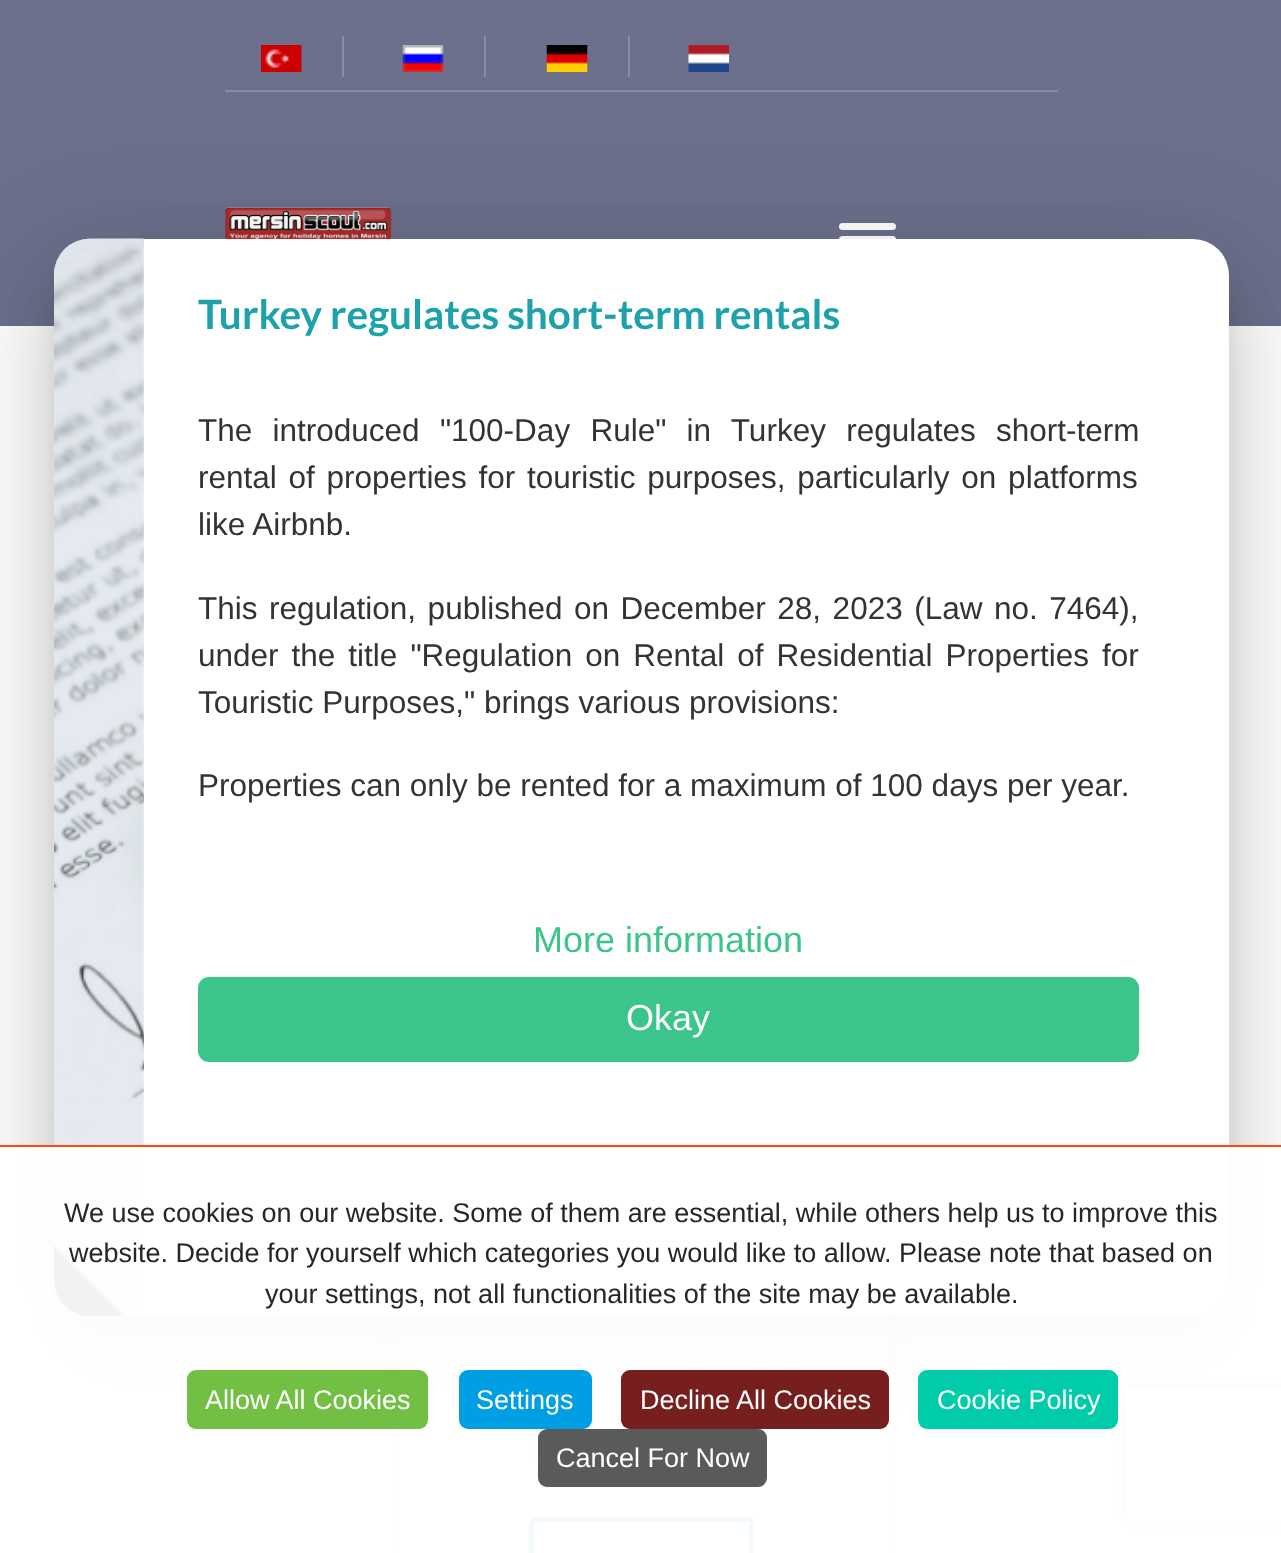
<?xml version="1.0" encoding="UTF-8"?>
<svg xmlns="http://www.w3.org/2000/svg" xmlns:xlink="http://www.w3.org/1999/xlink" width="1281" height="1553">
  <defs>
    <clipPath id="clip1"><path d="M 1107 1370 h 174 v 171 h -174 z m 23 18 h 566 c 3 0 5 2 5 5 v 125 c 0 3 -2 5 -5 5 h -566 c -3 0 -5 -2 -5 -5 v -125 c 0 -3 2 -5 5 -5 z" clip-rule="evenodd" /></clipPath>
  </defs>
  <rect width="100%" height="100%" fill="#ffffff" />
  <rect width="1281" height="326" fill="#6c708c" />
  <rect x="225" y="90" width="833" height="2" fill="#898da3" />
  <rect x="342" y="36" width="2" height="41" fill="#898da3" />
  <image x="261" y="45" width="41" height="27" xlink:href="image1.png" />
  <rect x="484" y="36" width="2" height="41" fill="#898da3" />
  <image x="402" y="45" width="42" height="27" xlink:href="image2.png" />
  <rect x="628" y="36" width="2" height="41" fill="#898da3" />
  <image x="546" y="45" width="42" height="27" xlink:href="image3.png" />
  <image x="688" y="45" width="41" height="27" xlink:href="image4.png" />
  <image x="225" y="207" width="167" height="32" xlink:href="image5.png" />
  <rect x="839" y="223" width="57" height="7" rx="3.5" fill="#ffffff" />
  <rect x="839" y="236" width="57" height="7" rx="3.5" fill="#ffffff" />
  <rect x="392" y="470" width="499" height="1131" fill="#000000" fill-opacity="0.1" filter="blur(16px)" />
  <rect x="394" y="1316" width="495" height="237" fill="#ffffff" />
  <rect x="393" y="471" width="497" height="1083" fill="none" stroke="#dddddd" stroke-width="2" />
  <rect x="530" y="1371" width="223" height="88" rx="4" fill="none" stroke="#dddddd" stroke-width="2" />
  <g clip-path="url(#clip1)">
    <rect x="1125" y="1388" width="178" height="135" rx="5" fill="#808080" filter="blur(5.5px)" />
  </g>
  <rect x="531.5" y="1519.5" width="220" height="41" rx="2.5" fill="none" stroke="#1da1aa" stroke-width="5" />
  <rect x="36" y="241" width="1211" height="1114" rx="54" fill="#000000" fill-opacity="0.1" filter="blur(52px)" />
  <rect x="47" y="286" width="1188" height="1091" rx="43" fill="#000000" fill-opacity="0.1" filter="blur(43px)" />
  <rect x="70" y="279" width="1143" height="1046" rx="20" fill="#000000" fill-opacity="0.2" filter="blur(17px)" />
  <rect x="54" y="239" width="1175" height="1077" rx="36" fill="#ffffff" />
  <image x="54" y="238" width="90" height="1079" xlink:href="image6.png" />
  <rect x="198" y="977" width="941" height="85" rx="11" fill="#3cc58b" />
  <rect y="1147" width="1281" height="406" fill="#ffffff" fill-opacity="0.95" />
  <rect y="1145" width="1281" height="2" fill="#ff4a0d" />
  <rect x="187" y="1370" width="241" height="59" rx="9" fill="#72bf44" />
  <rect x="459" y="1370" width="133" height="59" rx="9" fill="#009ee3" />
  <rect x="621" y="1370" width="268" height="59" rx="9" fill="#771f1f" />
  <rect x="918" y="1370" width="200" height="59" rx="9" fill="#00ccaa" />
  <rect x="538" y="1429" width="229" height="58" rx="9" fill="#5a5a5a" />
  <text x="198" y="329" style="font-family: Lato; font-size: 40.5px; font-weight: bold; fill: #1da1aa">Turkey regulates short-term rentals</text>
  <text x="198" y="441" word-spacing="11.5" style="font-family: Liberation Sans; font-size: 31.5px; fill: #333333">The introduced "100-Day Rule" in Turkey regulates short-term</text>
  <text x="198" y="488" word-spacing="3" style="font-family: Liberation Sans; font-size: 31.5px; fill: #333333">rental of properties for touristic purposes, particularly on platforms</text>
  <text x="198" y="535" style="font-family: Liberation Sans; font-size: 31.5px; fill: #333333">like Airbnb.</text>
  <text x="198" y="619" word-spacing="2.75" style="font-family: Liberation Sans; font-size: 31.5px; fill: #333333">This regulation, published on December 28, 2023 (Law no. 7464),</text>
  <text x="198" y="666" word-spacing="4.25" style="font-family: Liberation Sans; font-size: 31.5px; fill: #333333">under the title "Regulation on Rental of Residential Properties for</text>
  <text x="198" y="713" style="font-family: Liberation Sans; font-size: 31.5px; fill: #333333">Touristic Purposes," brings various provisions:</text>
  <text x="198" y="796" style="font-family: Liberation Sans; font-size: 31.5px; fill: #333333">Properties can only be rented for a maximum of 100 days per year.</text>
  <text x="533" y="952" style="font-family: Liberation Sans; font-size: 36px; fill: #3cc58b">More information</text>
  <text x="626" y="1030" style="font-family: Liberation Sans; font-size: 36px; fill: #ffffff">Okay</text>
  <text x="64" y="1222" style="font-family: Liberation Sans; font-size: 27px; fill: #262626">We use cookies on our website. Some of them are essential, while others help us to improve this</text>
  <text x="69" y="1262" style="font-family: Liberation Sans; font-size: 27px; fill: #262626">website. Decide for yourself which categories you would like to allow. Please note that based on</text>
  <text x="265" y="1303" style="font-family: Liberation Sans; font-size: 27px; fill: #262626">your settings, not all functionalities of the site may be available.</text>
  <text x="205" y="1409" style="font-family: Liberation Sans; font-size: 27px; fill: #ffffff">Allow All Cookies</text>
  <text x="476" y="1409" style="font-family: Liberation Sans; font-size: 27px; fill: #ffffff">Settings</text>
  <text x="640" y="1409" style="font-family: Liberation Sans; font-size: 27px; fill: #ffffff">Decline All Cookies</text>
  <text x="937" y="1409" style="font-family: Liberation Sans; font-size: 27px; fill: #ffffff">Cookie Policy</text>
  <text x="556" y="1467" style="font-family: Liberation Sans; font-size: 27px; fill: #ffffff">Cancel For Now</text>
</svg>
